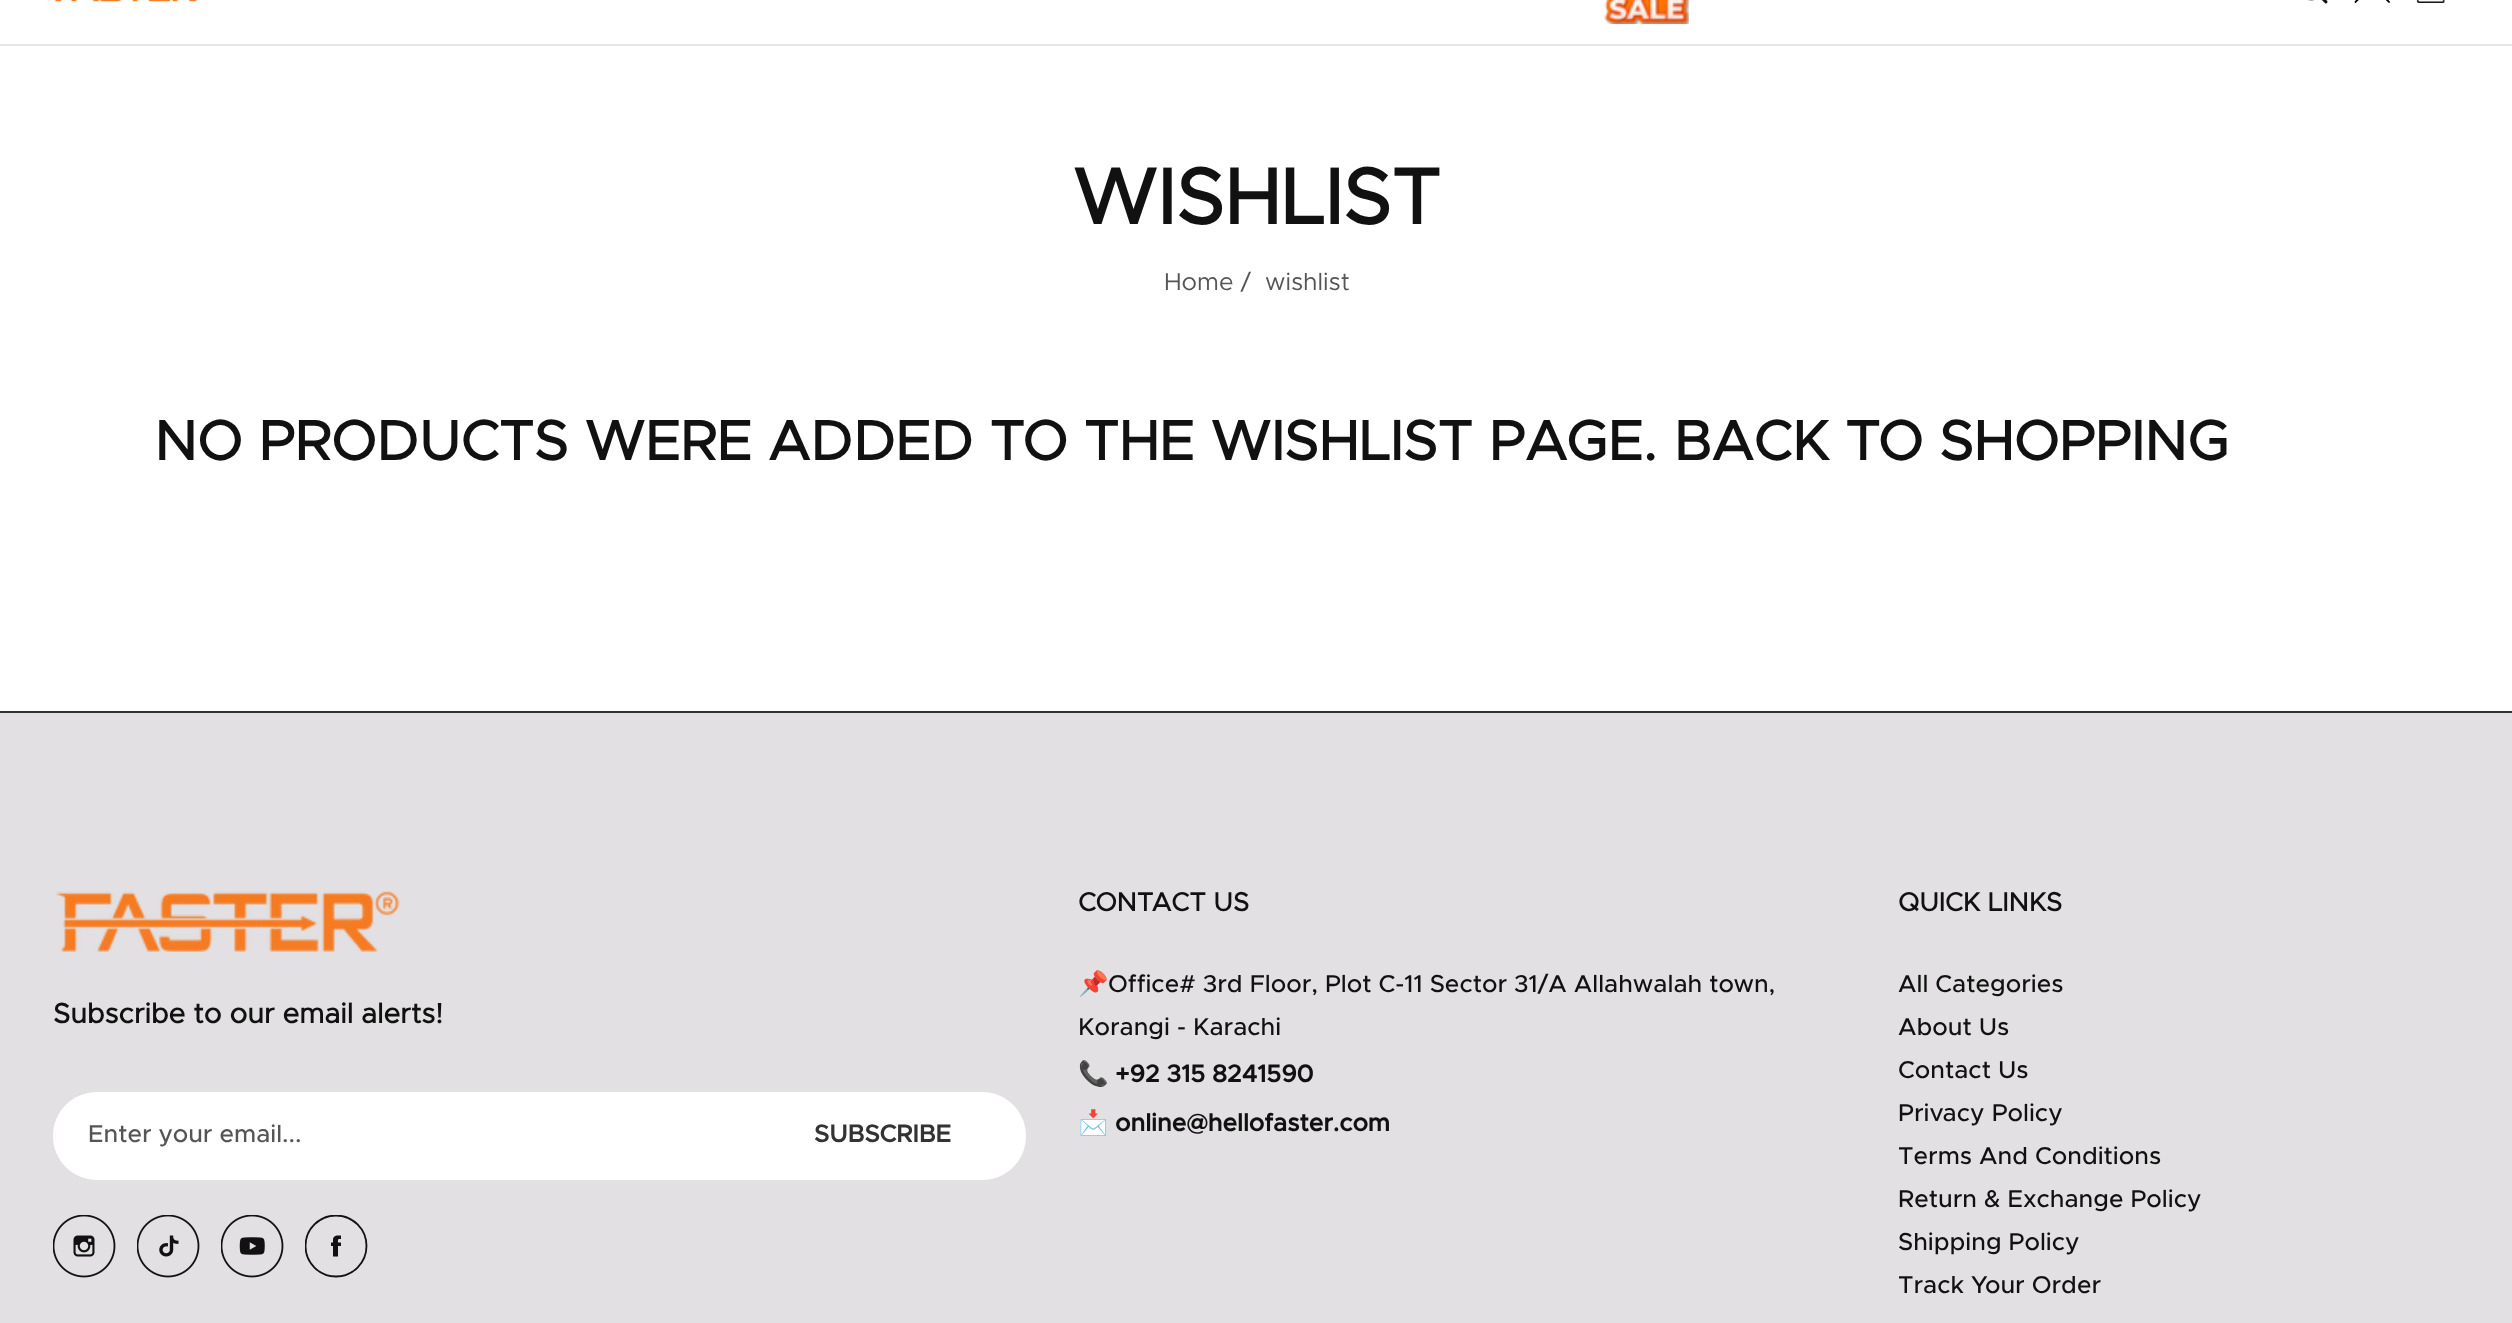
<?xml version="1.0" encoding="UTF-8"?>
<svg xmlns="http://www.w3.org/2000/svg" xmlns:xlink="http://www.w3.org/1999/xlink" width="2512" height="1323">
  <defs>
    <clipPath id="clip1"><rect x="305" y="1215" width="63" height="63" /></clipPath>
  </defs>
  <rect width="100%" height="100%" fill="#ffffff" />
  <rect y="44" width="2512" height="2" fill="#e6e6e6" />
  <image x="54" y="0" width="143" height="2" xlink:href="image1.png" />
  <image x="1604" y="0" width="85" height="24" xlink:href="image2.png" />
  <image x="2308" y="0" width="20" height="4" xlink:href="image3.png" />
  <path d="M 2355.5 2 c 6.5 -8.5 27 -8.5 33.5 0 m -17 -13.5 c 8.5 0 8.5 -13 0 -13 c -8.5 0 -8.5 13 0 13 z" fill="none" stroke="#000000" stroke-width="1.8" stroke-linecap="round" stroke-linejoin="round" />
  <image x="2416" y="0" width="29" height="3" xlink:href="image4.png" />
  <rect y="713" width="2512" height="610" fill="#e2e0e2" />
  <rect y="711" width="2512" height="2" fill="#333333" />
  <image x="56" y="891" width="344" height="61" xlink:href="image5.png" />
  <path d="M 97 1092 h 643 v 88 h -643 c -24.5 0 -44 -19.5 -44 -44 c 0 -24.5 19.5 -44 44 -44 z" fill="#ffffff" />
  <path d="M 740 1092 h 242 c 24.5 0 44 19.5 44 44 c 0 24.5 -19.5 44 -44 44 h -242 z" fill="#ffffff" />
  <image x="53" y="1215" width="63" height="63" xlink:href="image6.png" />
  <image x="137" y="1215" width="63" height="63" xlink:href="image7.png" />
  <image x="221" y="1215" width="63" height="63" xlink:href="image8.png" />
  <g clip-path="url(#clip1)">
    <circle cx="336" cy="1246" r="30.5" fill="none" stroke="#111111" stroke-width="1.8" />
  </g>
  <path d="M 333 1240 v 2.5 h -2 v 3.5 h 2 v 10.5 h 5 v -10.5 h 3 v -3.5 h -3 c 0 -3.5 -0.5 -3.5 3 -3.5 v -3.5 c -3.5 0 -8 -0.5 -8 4.5 z" fill="#111111" />
  <text x="1072" y="224" style="font-family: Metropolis; font-size: 78.75px; font-weight: bold; fill: #111111">WISHLIST</text>
  <text x="1164" y="290" style="font-family: Metropolis; font-size: 24.5px; fill: #555555">Home /</text>
  <text x="1265" y="290" style="font-family: Metropolis; font-size: 24.5px; fill: #555555">wishlist</text>
  <text x="154" y="460" style="font-family: Metropolis; font-size: 56px; font-weight: bold; fill: #111111">NO PRODUCTS WERE ADDED TO THE WISHLIST PAGE. BACK TO SHOPPING</text>
  <text x="53" y="1023" style="font-family: Metropolis; font-size: 28px; font-weight: bold; fill: #111111">Subscribe to our email alerts!</text>
  <text x="88" y="1142" style="font-family: Metropolis; font-size: 24.5px; font-weight: 500; fill: #555555">Enter your email...</text>
  <text x="814" y="1142" style="font-family: 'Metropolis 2'; font-size: 24.5px; font-weight: bold; fill: #333333">SUBSCRIBE</text>
  <text x="1078" y="911" style="font-family: Metropolis; font-size: 26.25px; font-weight: bold; fill: #111111">CONTACT US</text>
  <text x="1078" y="992" style="font-family: Noto Color Emoji; font-size: 24.5px; font-weight: bold; fill: #111111">📌</text>
  <text x="1108" y="992" style="font-family: Metropolis; font-size: 24.5px; font-weight: 500; fill: #111111">Office# 3rd Floor, Plot C-11 Sector 31/A Allahwalah town,</text>
  <text x="1078" y="1035" style="font-family: Metropolis; font-size: 24.5px; font-weight: 500; fill: #111111">Korangi - Karachi</text>
  <text x="1078" y="1082" style="font-family: Noto Color Emoji; font-size: 24.5px; font-weight: bold; fill: #111111">📞</text>
  <text x="1115" y="1082" style="font-family: 'Metropolis 2'; font-size: 24.5px; font-weight: bold; fill: #111111">+92 315 8241590</text>
  <text x="1078" y="1131" style="font-family: Noto Color Emoji; font-size: 24.5px; font-weight: bold; fill: #111111">📩</text>
  <text x="1115" y="1131" style="font-family: 'Metropolis 2'; font-size: 24.5px; font-weight: bold; fill: #111111">online@hellofaster.com</text>
  <text x="1898" y="911" style="font-family: Metropolis; font-size: 26.25px; font-weight: bold; fill: #111111">QUICK LINKS</text>
  <text x="1898" y="992" style="font-family: Metropolis; font-size: 24.5px; font-weight: 500; fill: #111111">All Categories</text>
  <text x="1898" y="1035" style="font-family: Metropolis; font-size: 24.5px; font-weight: 500; fill: #111111">About Us</text>
  <text x="1898" y="1078" style="font-family: Metropolis; font-size: 24.5px; font-weight: 500; fill: #111111">Contact Us</text>
  <text x="1898" y="1121" style="font-family: Metropolis; font-size: 24.5px; font-weight: 500; fill: #111111">Privacy Policy</text>
  <text x="1898" y="1164" style="font-family: Metropolis; font-size: 24.5px; font-weight: 500; fill: #111111">Terms And Conditions</text>
  <text x="1898" y="1207" style="font-family: Metropolis; font-size: 24.5px; font-weight: 500; fill: #111111">Return &amp; Exchange Policy</text>
  <text x="1898" y="1250" style="font-family: Metropolis; font-size: 24.5px; font-weight: 500; fill: #111111">Shipping Policy</text>
  <text x="1898" y="1293" style="font-family: Metropolis; font-size: 24.5px; font-weight: 500; fill: #111111">Track Your Order</text>
</svg>
